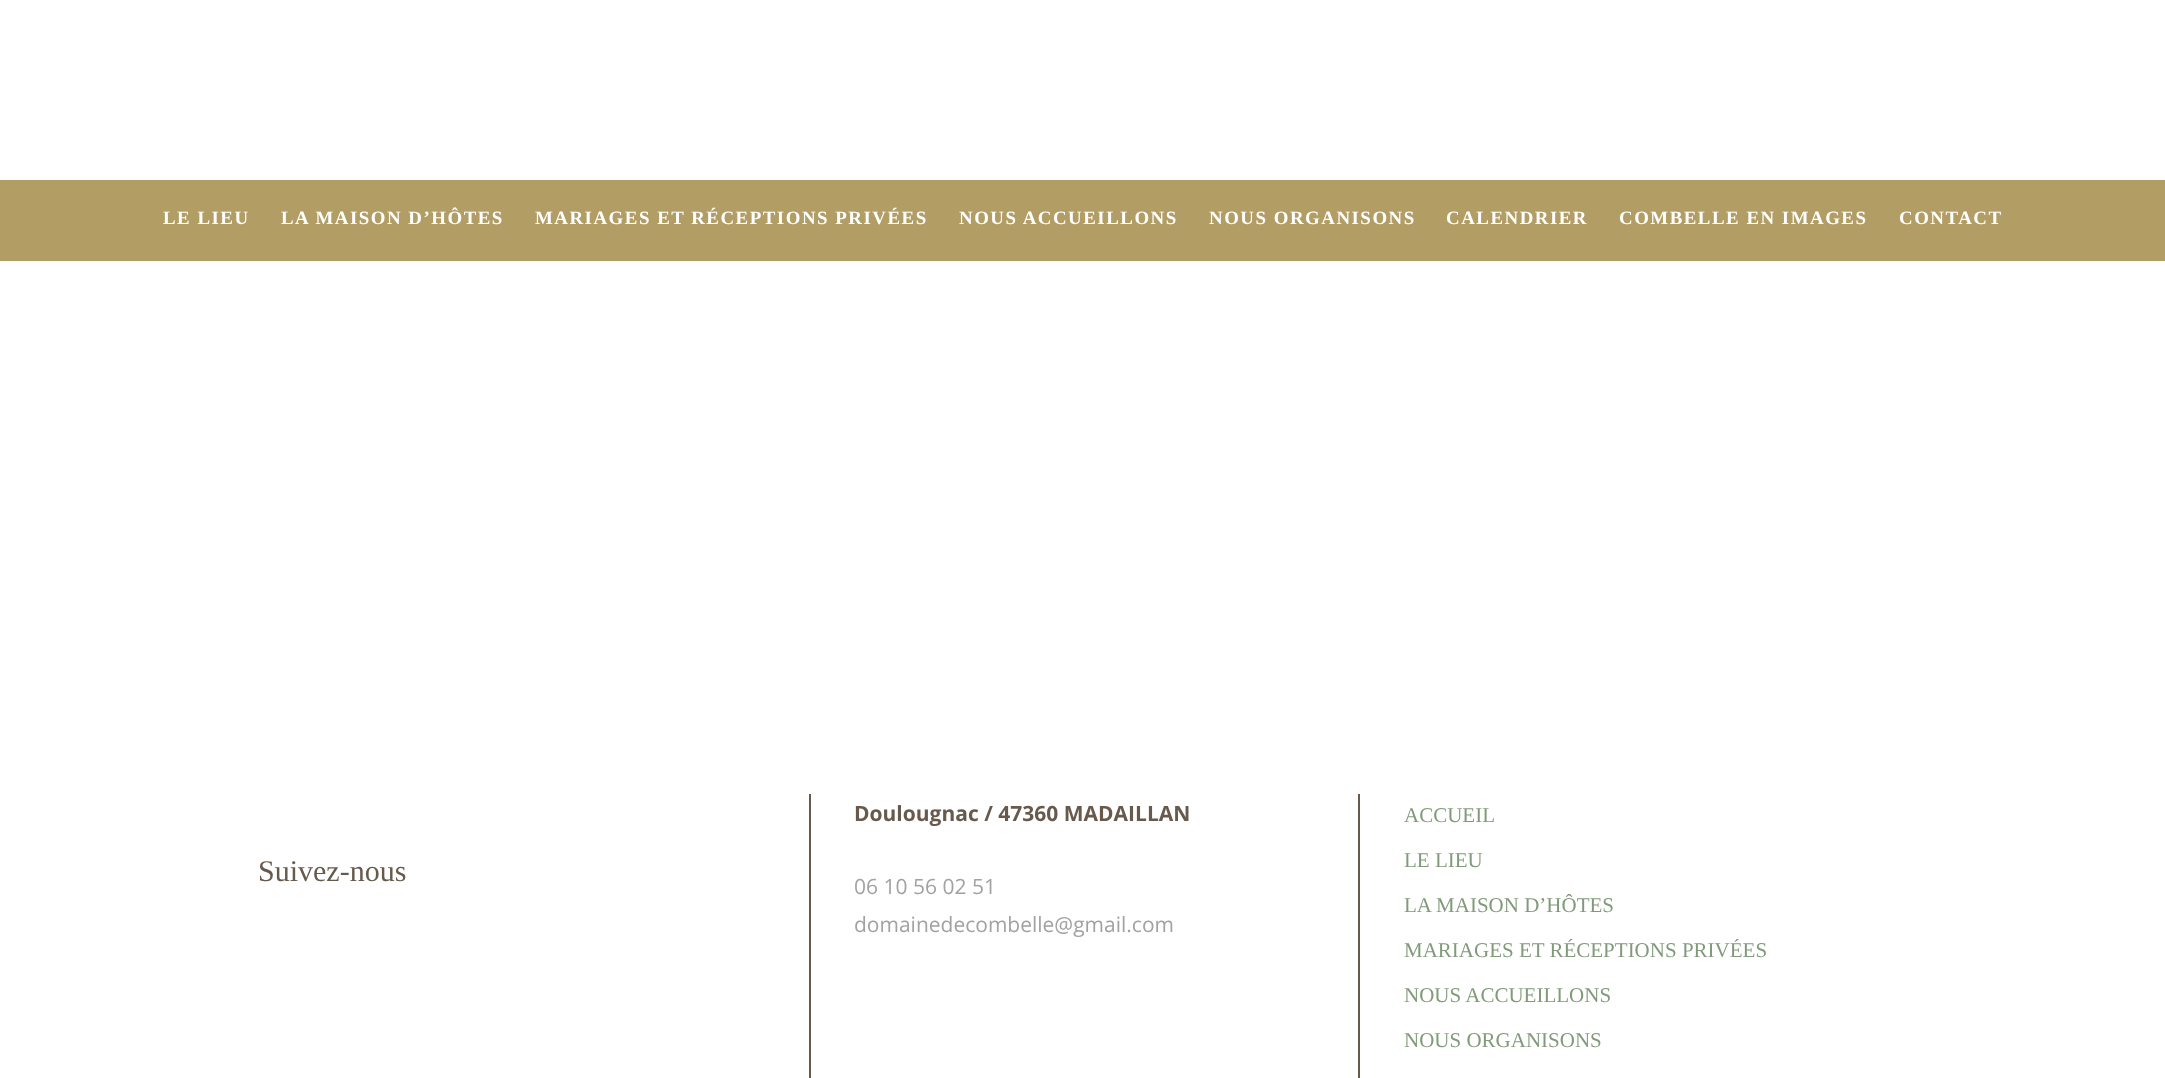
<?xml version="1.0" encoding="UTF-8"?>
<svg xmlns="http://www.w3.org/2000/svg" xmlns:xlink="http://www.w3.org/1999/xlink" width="2165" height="1078">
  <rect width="100%" height="100%" fill="#ffffff" />
  <rect y="180" width="2165" height="81" fill="#b29d65" />
  <rect x="809" y="794" width="2" height="284" fill="#675a4c" />
  <rect x="1358" y="794" width="2" height="284" fill="#675a4c" />
  <text x="163" y="224" style="font-family: Liberation Serif; font-size: 18.9px; font-weight: bold; letter-spacing: 1.5px; fill: #ffffff">LE LIEU</text>
  <text x="281" y="224" style="font-family: Liberation Serif; font-size: 18.9px; font-weight: bold; letter-spacing: 1.5px; fill: #ffffff">LA MAISON D’HÔTES</text>
  <text x="535" y="224" style="font-family: Liberation Serif; font-size: 18.9px; font-weight: bold; letter-spacing: 1.5px; fill: #ffffff">MARIAGES ET RÉCEPTIONS PRIVÉES</text>
  <text x="959" y="224" style="font-family: Liberation Serif; font-size: 18.9px; font-weight: bold; letter-spacing: 1.5px; fill: #ffffff">NOUS ACCUEILLONS</text>
  <text x="1209" y="224" style="font-family: Liberation Serif; font-size: 18.9px; font-weight: bold; letter-spacing: 1.5px; fill: #ffffff">NOUS ORGANISONS</text>
  <text x="1446" y="224" style="font-family: Liberation Serif; font-size: 18.9px; font-weight: bold; letter-spacing: 1.5px; fill: #ffffff">CALENDRIER</text>
  <text x="1619" y="224" style="font-family: Liberation Serif; font-size: 18.9px; font-weight: bold; letter-spacing: 1.5px; fill: #ffffff">COMBELLE EN IMAGES</text>
  <text x="1899" y="224" style="font-family: Liberation Serif; font-size: 18.9px; font-weight: bold; letter-spacing: 1.5px; fill: #ffffff">CONTACT</text>
  <text x="258" y="881" style="font-family: Liberation Serif; font-size: 30px; fill: #675a4c">Suivez-nous</text>
  <text x="854" y="821" style="font-family: Open Sans; font-size: 21px; font-weight: bold; fill: #675a4c">Doulougnac / 47360 MADAILLAN</text>
  <text x="854" y="894" style="font-family: Open Sans; font-size: 21px; fill: #a2a2a2">06 10 56 02 51</text>
  <text x="854" y="932" style="font-family: Open Sans; font-size: 21px; fill: #a2a2a2">domainedecombelle@gmail.com</text>
  <text x="1404" y="822" style="font-family: Liberation Serif; font-size: 21px; fill: #819a7a">ACCUEIL</text>
  <text x="1404" y="867" style="font-family: Liberation Serif; font-size: 21px; fill: #819a7a">LE LIEU</text>
  <text x="1404" y="912" style="font-family: Liberation Serif; font-size: 21px; fill: #819a7a">LA MAISON D’HÔTES</text>
  <text x="1404" y="957" style="font-family: Liberation Serif; font-size: 21px; fill: #819a7a">MARIAGES ET RÉCEPTIONS PRIVÉES</text>
  <text x="1404" y="1002" style="font-family: Liberation Serif; font-size: 21px; fill: #819a7a">NOUS ACCUEILLONS</text>
  <text x="1404" y="1047" style="font-family: Liberation Serif; font-size: 21px; fill: #819a7a">NOUS ORGANISONS</text>
</svg>
